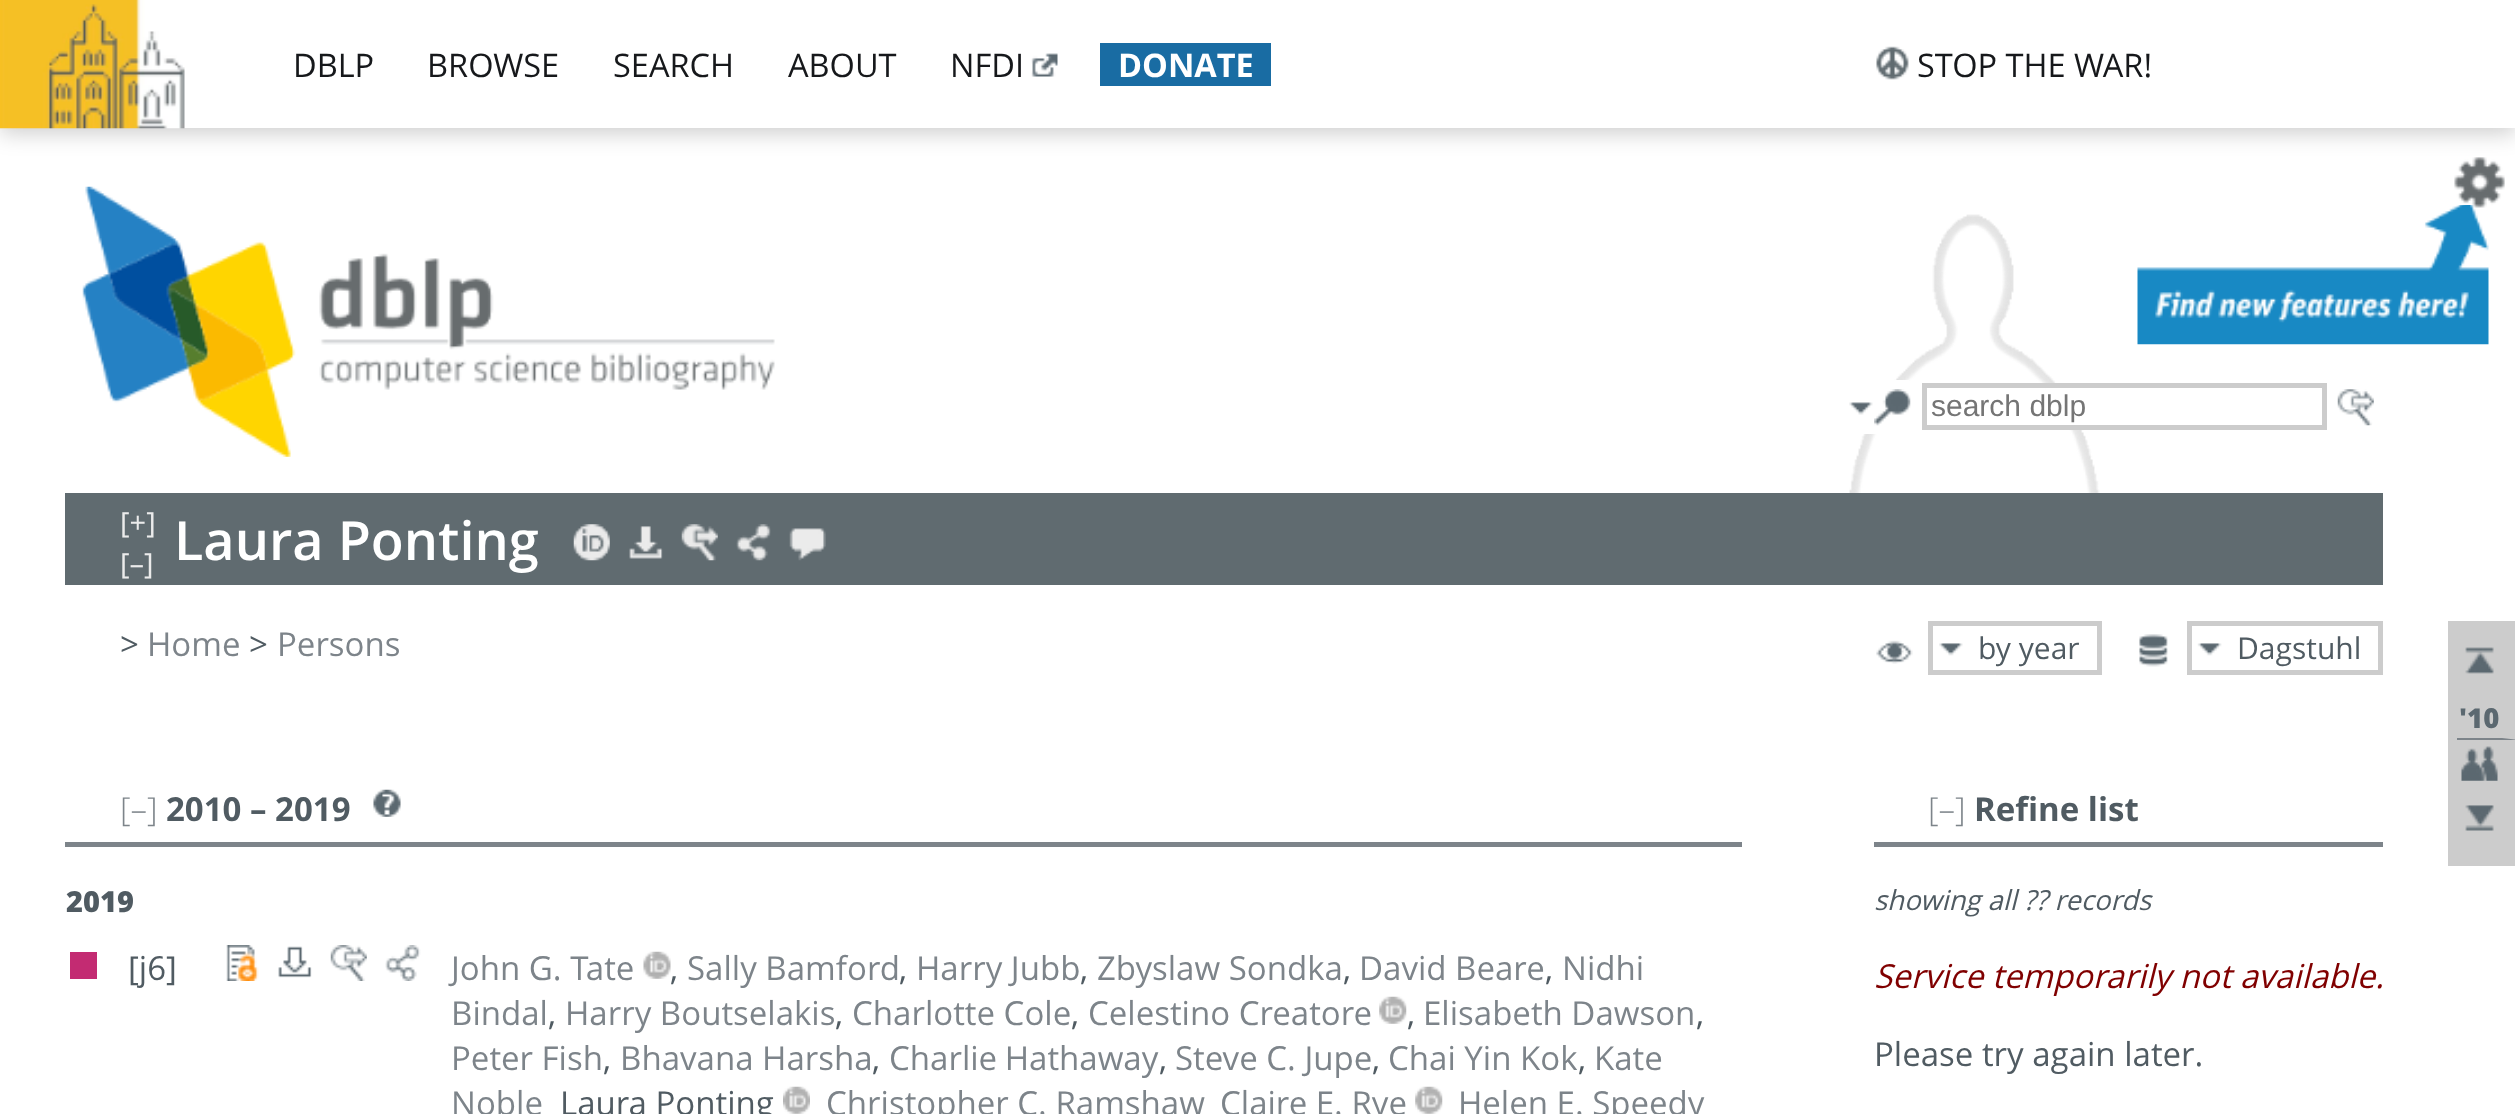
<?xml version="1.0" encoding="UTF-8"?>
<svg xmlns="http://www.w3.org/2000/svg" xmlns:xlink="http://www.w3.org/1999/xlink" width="2515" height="1114">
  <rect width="100%" height="100%" fill="#ffffff" />
  <image x="2137" y="205" width="352" height="140" xlink:href="image7.png" />
  <image x="2454" y="157" width="51" height="51" xlink:href="image6.png" />
  <rect y="5" width="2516" height="128" fill="#000000" fill-opacity="0.2" filter="blur(11px)" />
  <rect x="184" width="2331" height="128" fill="#ffffff" />
  <image x="0" y="0" width="185" height="129" xlink:href="image1.png" />
  <image x="1031" y="53" width="27" height="24" xlink:href="image2.png" />
  <rect x="1100" y="43" width="171" height="43" fill="#196ca3" />
  <image x="1876" y="46" width="33" height="34" xlink:href="image3.png" />
  <image x="1849" y="214" width="251" height="279" xlink:href="image4.png" />
  <image x="82" y="186" width="693" height="271" xlink:href="image5.png" />
  <rect x="1863" y="380" width="46" height="54" fill="#ffffff" />
  <image x="1849" y="402" width="24" height="13" xlink:href="image8.png" />
  <image x="1874" y="389" width="37" height="37" xlink:href="image9.png" />
  <rect x="2046" y="388" width="35" height="37" fill="#ffffff" />
  <rect x="1924.5" y="385.5" width="400" height="42" fill="none" stroke="#cccccc" stroke-width="5" />
  <image x="2337" y="389" width="37" height="37" xlink:href="image10.png" />
  <rect x="65" y="493" width="2318" height="92" fill="#606b70" />
  <image x="573" y="524" width="37" height="37" xlink:href="image11.png" />
  <image x="629" y="526" width="34" height="33" xlink:href="image12.png" />
  <image x="681" y="524" width="37" height="37" xlink:href="image13.png" />
  <image x="736" y="524" width="35" height="37" xlink:href="image14.png" />
  <image x="789" y="528" width="37" height="33" xlink:href="image15.png" />
  <image x="1876" y="640" width="37" height="24" xlink:href="image16.png" />
  <image x="1939" y="643" width="24" height="13" xlink:href="image17.png" />
  <rect x="1930.5" y="623.5" width="169" height="49" fill="none" stroke="#cccccc" stroke-width="5" />
  <image x="2139" y="634" width="29" height="33" xlink:href="image18.png" />
  <image x="2197" y="643" width="25" height="13" xlink:href="image19.png" />
  <rect x="2189.5" y="623.5" width="191" height="49" fill="none" stroke="#cccccc" stroke-width="5" />
  <rect x="2448" y="621" width="67" height="245" fill="#cccccc" />
  <image x="2465" y="647" width="29" height="27" xlink:href="image20.png" />
  <path d="M 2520 740 h -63 v -2 h 45 z" fill="#7d848a" />
  <image x="2461" y="746" width="37" height="35" xlink:href="image21.png" />
  <image x="2465" y="805" width="29" height="26" xlink:href="image22.png" />
  <rect x="65" y="842" width="1677" height="5" fill="#7d848a" />
  <image x="373" y="789" width="28" height="28" xlink:href="image23.png" />
  <rect x="70" y="952" width="27" height="27" fill="#c32b72" />
  <image x="226" y="945" width="33" height="36" xlink:href="image24.png" />
  <image x="278" y="946" width="34" height="32" xlink:href="image25.png" />
  <image x="330" y="945" width="37" height="36" xlink:href="image26.png" />
  <image x="385" y="945" width="36" height="36" xlink:href="image27.png" />
  <image x="643" y="951" width="28" height="28" xlink:href="image28.png" />
  <image x="1379" y="996" width="28" height="28" xlink:href="image29.png" />
  <image x="783" y="1086" width="27" height="28" xlink:href="image30.png" />
  <image x="1415" y="1086" width="28" height="28" xlink:href="image31.png" />
  <rect x="1874" y="842" width="509" height="5" fill="#7d848a" />
  <text x="293" y="77" style="font-family: Open Sans; font-size: 32.5px; fill: #16181b">DBLP</text>
  <text x="427" y="77" style="font-family: Open Sans; font-size: 32.5px; fill: #16181b">BROWSE</text>
  <text x="613" y="77" style="font-family: Open Sans; font-size: 32.5px; fill: #16181b">SEARCH</text>
  <text x="788" y="77" style="font-family: Open Sans; font-size: 32.5px; fill: #16181b">ABOUT</text>
  <text x="950" y="77" style="font-family: Open Sans; font-size: 32.5px; fill: #16181b">NFDI</text>
  <text x="1118" y="77" style="font-family: Open Sans; font-size: 32.5px; font-weight: bold; fill: #ffffff">DONATE</text>
  <text x="1917" y="77" style="font-family: Open Sans; font-size: 32.5px; fill: #16181b">STOP THE WAR!</text>
  <text x="1931" y="416" style="font-family: Liberation Sans; font-size: 30px; fill: #757575">search dblp</text>
  <text x="120" y="533" style="font-family: Open Sans; font-size: 29px; fill: #ebebeb">[+]</text>
  <text x="120" y="574" style="font-family: Open Sans; font-size: 29px; fill: #ebebeb">[–]</text>
  <text x="174" y="560" style="font-family: Open Sans; font-size: 54px; font-weight: 600; fill: #ffffff">Laura Ponting</text>
  <text x="120" y="656" style="font-family: Open Sans; font-size: 33px; fill: #505b62">&gt;</text>
  <text x="147" y="656" style="font-family: Open Sans; font-size: 33px; fill: #7d848a">Home</text>
  <text x="249" y="656" style="font-family: Open Sans; font-size: 33px; fill: #505b62">&gt;</text>
  <text x="277" y="656" style="font-family: Open Sans; font-size: 33px; fill: #7d848a">Persons</text>
  <text x="1978" y="659" style="font-family: Open Sans; font-size: 30px; fill: #505b62">by year</text>
  <text x="2237" y="659" style="font-family: Open Sans; font-size: 30px; fill: #505b62">Dagstuhl</text>
  <text x="2459" y="728" style="font-family: Open Sans; font-size: 27.5px; font-weight: 800; fill: #5b6870">'10</text>
  <text x="120" y="821" style="font-family: Open Sans; font-size: 33px; font-weight: 300; fill: #7d848a">[–]</text>
  <text x="166" y="821" style="font-family: Open Sans; font-size: 33px; font-weight: bold; fill: #505b62">2010 – 2019</text>
  <text x="66" y="912" style="font-family: Open Sans; font-size: 29px; font-weight: 800; fill: #505b62">2019</text>
  <text x="128" y="980" style="font-family: Open Sans; font-size: 33px; fill: #505b62">[j6]</text>
  <text x="451" y="980" style="font-family: Open Sans; font-size: 33px; fill: #7d848a">John G. Tate</text>
  <text x="670" y="980" style="font-family: Open Sans; font-size: 33px; fill: #505b62">,</text>
  <text x="687" y="980" style="font-family: Open Sans; font-size: 33px; fill: #7d848a">Sally Bamford</text>
  <text x="899" y="980" style="font-family: Open Sans; font-size: 33px; fill: #505b62">,</text>
  <text x="916" y="980" style="font-family: Open Sans; font-size: 33px; fill: #7d848a">Harry Jubb</text>
  <text x="1080" y="980" style="font-family: Open Sans; font-size: 33px; fill: #505b62">,</text>
  <text x="1097" y="980" style="font-family: Open Sans; font-size: 33px; fill: #7d848a">Zbyslaw Sondka</text>
  <text x="1343" y="980" style="font-family: Open Sans; font-size: 33px; fill: #505b62">,</text>
  <text x="1359" y="980" style="font-family: Open Sans; font-size: 33px; fill: #7d848a">David Beare</text>
  <text x="1545" y="980" style="font-family: Open Sans; font-size: 33px; fill: #505b62">,</text>
  <text x="1562" y="980" style="font-family: Open Sans; font-size: 33px; fill: #7d848a">Nidhi</text>
  <text x="451" y="1025" style="font-family: Open Sans; font-size: 33px; fill: #7d848a">Bindal</text>
  <text x="548" y="1025" style="font-family: Open Sans; font-size: 33px; fill: #505b62">,</text>
  <text x="565" y="1025" style="font-family: Open Sans; font-size: 33px; fill: #7d848a">Harry Boutselakis</text>
  <text x="835" y="1025" style="font-family: Open Sans; font-size: 33px; fill: #505b62">,</text>
  <text x="852" y="1025" style="font-family: Open Sans; font-size: 33px; fill: #7d848a">Charlotte Cole</text>
  <text x="1071" y="1025" style="font-family: Open Sans; font-size: 33px; fill: #505b62">,</text>
  <text x="1088" y="1025" style="font-family: Open Sans; font-size: 33px; fill: #7d848a">Celestino Creatore</text>
  <text x="1407" y="1025" style="font-family: Open Sans; font-size: 33px; fill: #505b62">,</text>
  <text x="1423" y="1025" style="font-family: Open Sans; font-size: 33px; fill: #7d848a">Elisabeth Dawson</text>
  <text x="1696" y="1025" style="font-family: Open Sans; font-size: 33px; fill: #505b62">,</text>
  <text x="451" y="1070" style="font-family: Open Sans; font-size: 33px; fill: #7d848a">Peter Fish</text>
  <text x="603" y="1070" style="font-family: Open Sans; font-size: 33px; fill: #505b62">,</text>
  <text x="620" y="1070" style="font-family: Open Sans; font-size: 33px; fill: #7d848a">Bhavana Harsha</text>
  <text x="872" y="1070" style="font-family: Open Sans; font-size: 33px; fill: #505b62">,</text>
  <text x="889" y="1070" word-spacing="-1" style="font-family: Open Sans; font-size: 33px; fill: #7d848a">Charlie Hathaway</text>
  <text x="1159" y="1070" style="font-family: Open Sans; font-size: 33px; fill: #505b62">,</text>
  <text x="1175" y="1070" style="font-family: Open Sans; font-size: 33px; fill: #7d848a">Steve C. Jupe</text>
  <text x="1372" y="1070" style="font-family: Open Sans; font-size: 33px; fill: #505b62">,</text>
  <text x="1388" y="1070" style="font-family: Open Sans; font-size: 33px; fill: #7d848a">Chai Yin Kok</text>
  <text x="1578" y="1070" style="font-family: Open Sans; font-size: 33px; fill: #505b62">,</text>
  <text x="1594" y="1070" style="font-family: Open Sans; font-size: 33px; fill: #7d848a">Kate</text>
  <text x="451" y="1115" style="font-family: Open Sans; font-size: 33px; fill: #7d848a">Noble</text>
  <text x="560" y="1115" style="font-family: Open Sans; font-size: 33px; fill: #505b62">Laura Ponting</text>
  <text x="826" y="1115" style="font-family: Open Sans; font-size: 33px; fill: #7d848a">Christopher C. Ramshaw</text>
  <text x="1220" y="1115" style="font-family: Open Sans; font-size: 33px; fill: #7d848a">Claire E. Rye</text>
  <text x="1458" y="1115" style="font-family: Open Sans; font-size: 33px; fill: #7d848a">Helen E. Speedy</text>
  <text x="1928" y="821" style="font-family: Open Sans; font-size: 33px; font-weight: 300; fill: #7d848a">[–]</text>
  <text x="1974" y="821" style="font-family: Open Sans; font-size: 33px; font-weight: bold; fill: #505b62">Refine list</text>
  <text x="1874" y="910" style="font-family: Open Sans; font-size: 27.5px; font-style: italic; fill: #505b62">showing all ?? records</text>
  <text x="1874" y="988" style="font-family: Open Sans; font-size: 33px; font-style: italic; fill: #800000">Service temporarily not available.</text>
  <text x="1874" y="1066" style="font-family: Open Sans; font-size: 33px; fill: #505b62">Please try again later.</text>
</svg>
